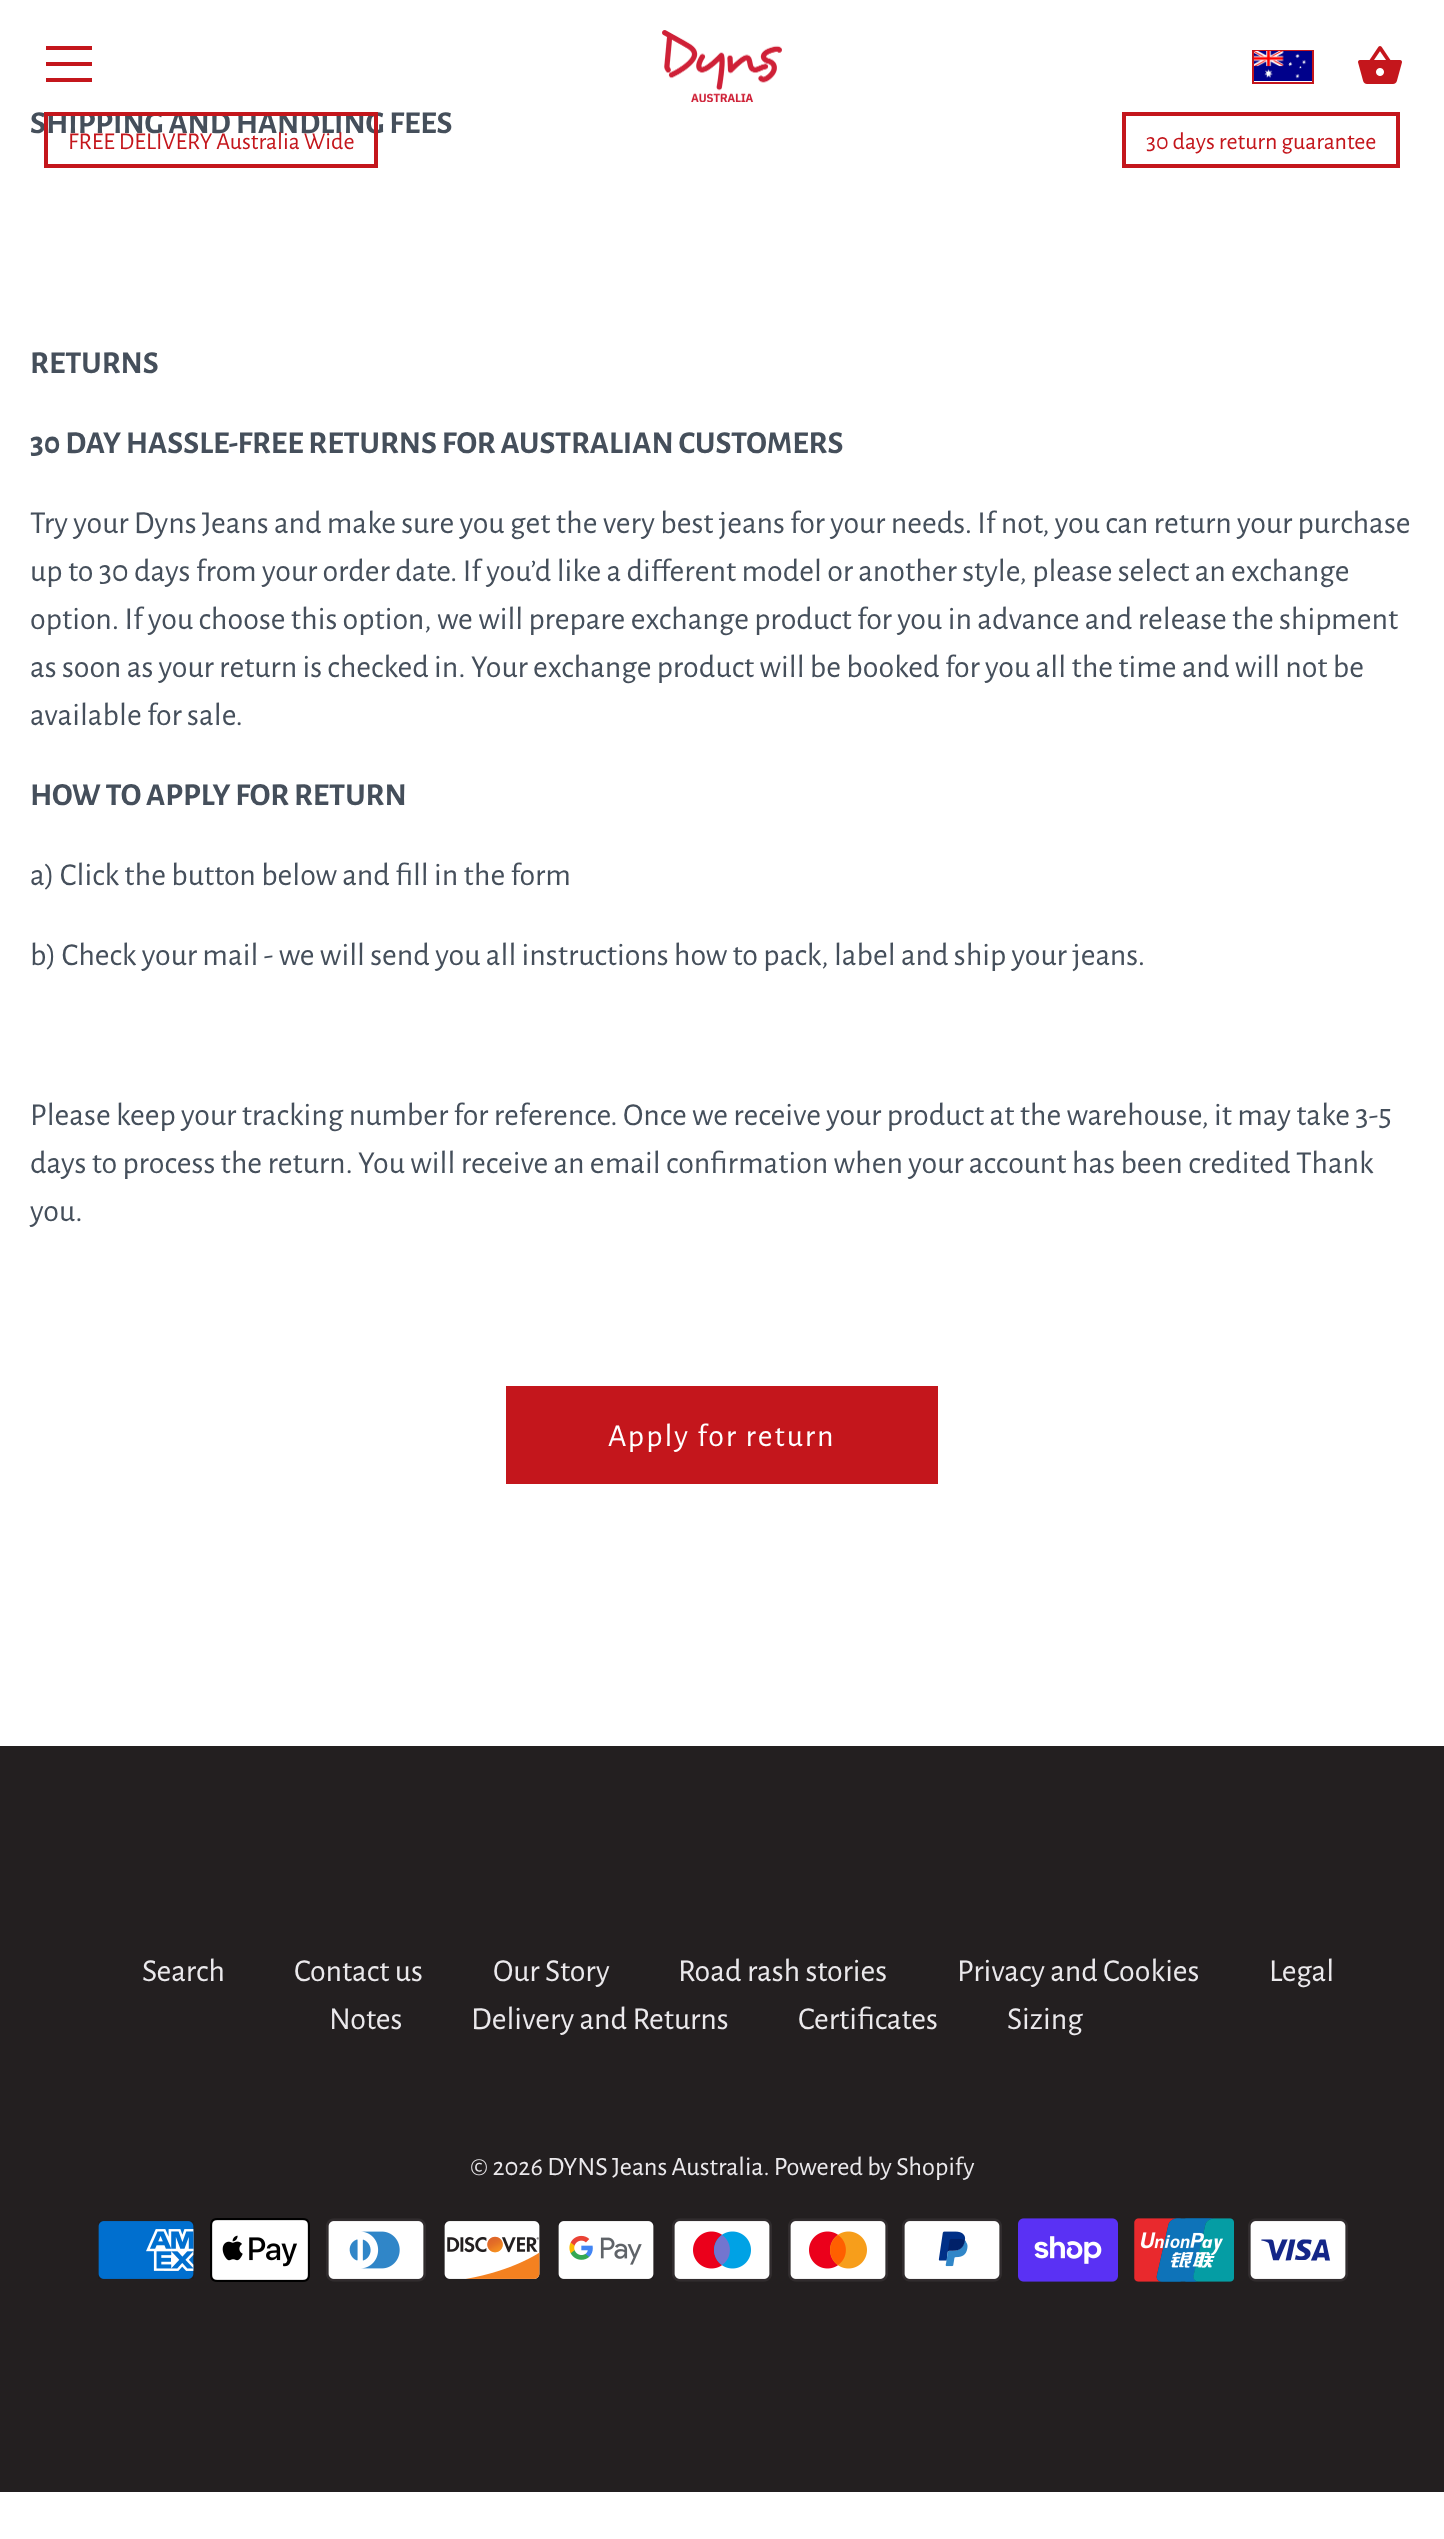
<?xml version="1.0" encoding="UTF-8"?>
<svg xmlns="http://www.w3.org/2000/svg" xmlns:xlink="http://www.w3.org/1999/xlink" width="1444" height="2539">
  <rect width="100%" height="100%" fill="#ffffff" />
  <rect x="506" y="1386" width="432" height="98" fill="#c4161c" />
  <rect x="46" y="46" width="46" height="4" fill="#c4161c" />
  <rect x="46" y="62" width="46" height="4" fill="#c4161c" />
  <rect x="46" y="78" width="46" height="4" fill="#c4161c" />
  <image x="662" y="30" width="120" height="72" xlink:href="image1.png" />
  <rect x="1253" y="51" width="60" height="32" fill="none" stroke="#c4161c" stroke-width="2" />
  <image x="1254" y="51" width="58" height="30" xlink:href="image2.png" />
  <image x="1358" y="46" width="44" height="38" xlink:href="image3.png" />
  <rect x="1124" y="114" width="274" height="52" fill="none" stroke="#c4161c" stroke-width="4" />
  <rect y="1746" width="1444" height="746" fill="#231f20" />
  <image x="98" y="2221" width="96" height="58" xlink:href="image4.png" />
  <image x="210" y="2218" width="100" height="64" xlink:href="image5.png" />
  <image x="326" y="2218" width="100" height="64" xlink:href="image6.png" />
  <image x="444" y="2221" width="96" height="58" xlink:href="image7.png" />
  <image x="558" y="2221" width="96" height="58" xlink:href="image8.png" />
  <image x="672" y="2218" width="100" height="64" xlink:href="image9.png" />
  <image x="788" y="2218" width="100" height="64" xlink:href="image10.png" />
  <image x="902" y="2218" width="100" height="64" xlink:href="image11.png" />
  <image x="1018" y="2218" width="100" height="64" xlink:href="image12.png" />
  <image x="1134" y="2218" width="100" height="64" xlink:href="image13.png" />
  <image x="1248" y="2218" width="100" height="64" xlink:href="image14.png" />
  <text x="30" y="133" style="font-family: Alegreya Sans; font-size: 32px; font-weight: bold; fill: #454f5b">SHIPPING AND HANDLING FEES</text>
  <text x="30" y="373" style="font-family: Alegreya Sans; font-size: 32px; font-weight: bold; fill: #454f5b">RETURNS</text>
  <text x="30" y="453" style="font-family: Alegreya Sans; font-size: 32px; font-weight: bold; fill: #454f5b">30 DAY HASSLE-FREE RETURNS FOR AUSTRALIAN CUSTOMERS</text>
  <text x="30" y="533" style="font-family: Alegreya Sans; font-size: 32px; fill: #454f5b">Try your Dyns Jeans and make sure you get the very best jeans for your needs. If not, you can return your purchase</text>
  <text x="30" y="581" style="font-family: Alegreya Sans; font-size: 32px; fill: #454f5b">up to 30 days from your order date. If you’d like a different model or another style, please select an exchange</text>
  <text x="30" y="629" style="font-family: Alegreya Sans; font-size: 32px; fill: #454f5b">option. If you choose this option, we will prepare exchange product for you in advance and release the shipment</text>
  <text x="30" y="677" style="font-family: Alegreya Sans; font-size: 32px; fill: #454f5b">as soon as your return is checked in. Your exchange product will be booked for you all the time and will not be</text>
  <text x="30" y="725" style="font-family: Alegreya Sans; font-size: 32px; fill: #454f5b">available for sale.</text>
  <text x="30" y="805" style="font-family: Alegreya Sans; font-size: 32px; font-weight: bold; fill: #454f5b">HOW TO APPLY FOR RETURN</text>
  <text x="30" y="885" style="font-family: Alegreya Sans; font-size: 32px; fill: #454f5b">a) Click the button below and fill in the form</text>
  <text x="30" y="965" style="font-family: Alegreya Sans; font-size: 32px; fill: #454f5b">b) Check your mail - we will send you all instructions how to pack, label and ship your jeans.</text>
  <text x="30" y="1125" style="font-family: Alegreya Sans; font-size: 32px; fill: #454f5b">Please keep your tracking number for reference. Once we receive your product at the warehouse, it may take 3-5</text>
  <text x="30" y="1173" style="font-family: Alegreya Sans; font-size: 32px; fill: #454f5b">days to process the return. You will receive an email confirmation when your account has been credited Thank</text>
  <text x="30" y="1221" style="font-family: Alegreya Sans; font-size: 32px; fill: #454f5b">you.</text>
  <text x="608" y="1446" style="font-family: Alegreya Sans; font-size: 32px; letter-spacing: 2px; fill: #ffffff">Apply for return</text>
  <rect x="46" y="114" width="330" height="52" fill="none" stroke="#c4161c" stroke-width="4" />
  <text x="68" y="149" style="font-family: Alegreya Sans; font-size: 24px; fill: #c4161c">FREE DELIVERY Australia Wide</text>
  <text x="1146" y="149" style="font-family: Alegreya Sans; font-size: 24px; fill: #c4161c">30 days return guarantee</text>
  <text x="142" y="1981" style="font-family: Alegreya Sans; font-size: 32px; fill: #ebe9ec">Search</text>
  <text x="294" y="1981" style="font-family: Alegreya Sans; font-size: 32px; fill: #ebe9ec">Contact us</text>
  <text x="493" y="1981" style="font-family: Alegreya Sans; font-size: 32px; fill: #ebe9ec">Our Story</text>
  <text x="678" y="1981" style="font-family: Alegreya Sans; font-size: 32px; fill: #ebe9ec">Road rash stories</text>
  <text x="957" y="1981" style="font-family: Alegreya Sans; font-size: 32px; fill: #ebe9ec">Privacy and Cookies</text>
  <text x="1269" y="1981" style="font-family: Alegreya Sans; font-size: 32px; fill: #ebe9ec">Legal</text>
  <text x="329" y="2029" style="font-family: Alegreya Sans; font-size: 32px; fill: #ebe9ec">Notes</text>
  <text x="471" y="2029" style="font-family: Alegreya Sans; font-size: 32px; fill: #ebe9ec">Delivery and Returns</text>
  <text x="798" y="2029" style="font-family: Alegreya Sans; font-size: 32px; fill: #ebe9ec">Certificates</text>
  <text x="1007" y="2029" style="font-family: Alegreya Sans; font-size: 32px; fill: #ebe9ec">Sizing</text>
  <text x="470" y="2175" style="font-family: Alegreya Sans; font-size: 26.4px; fill: #ebe9ec">© 2026 DYNS Jeans Australia. Powered by Shopify</text>
</svg>
